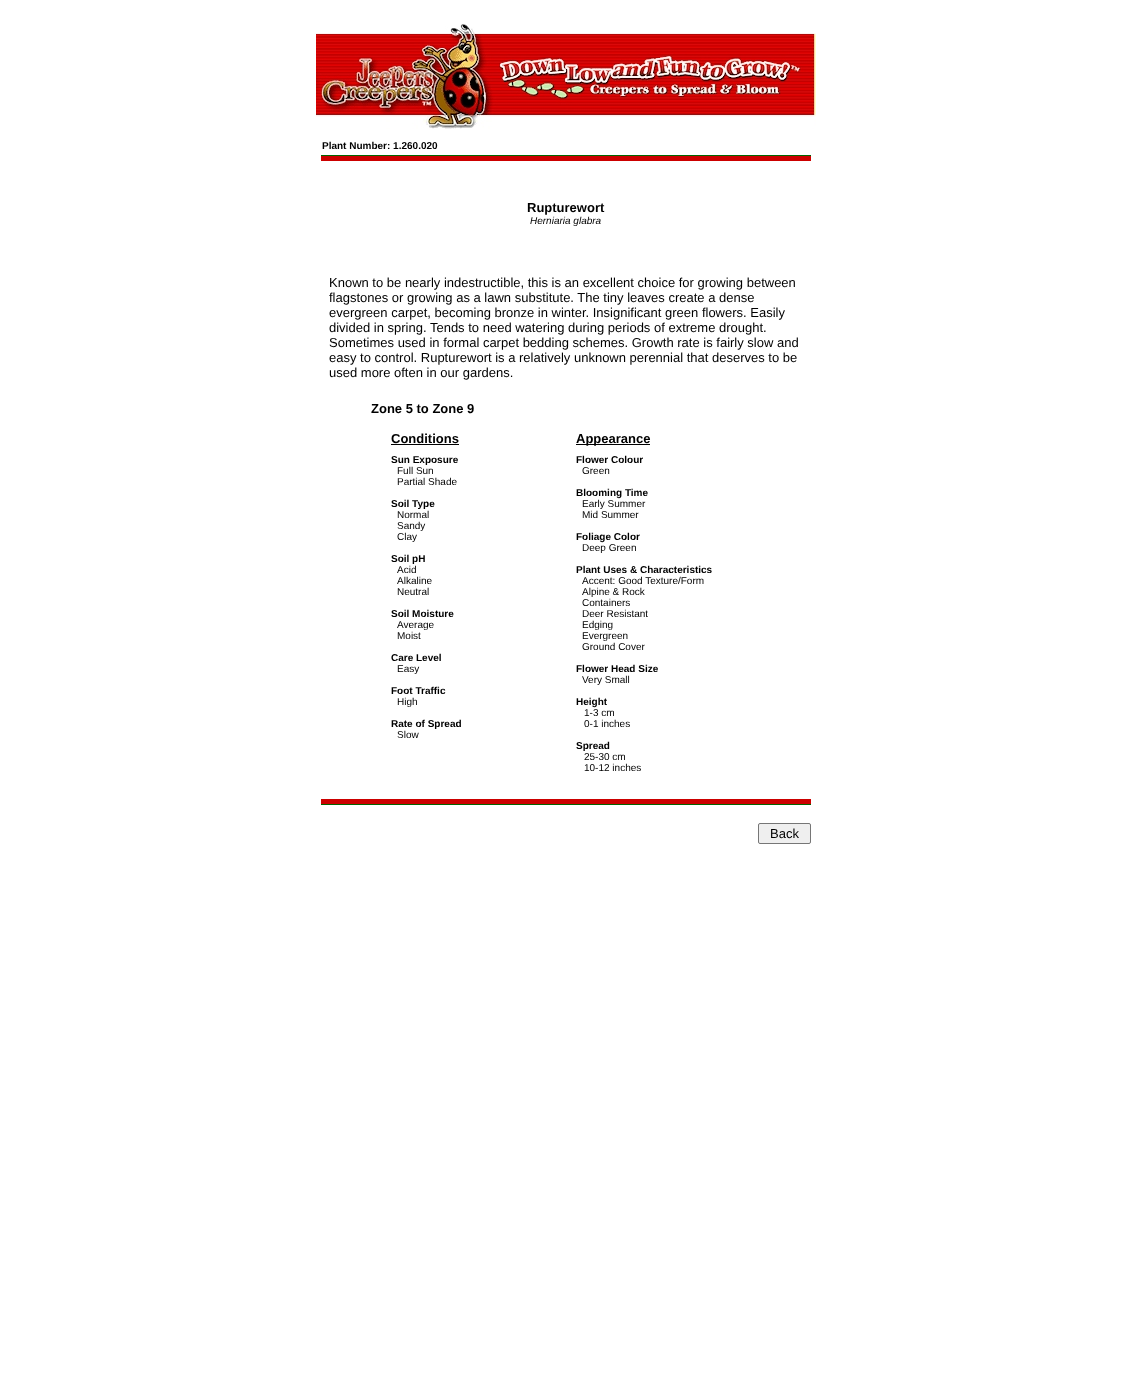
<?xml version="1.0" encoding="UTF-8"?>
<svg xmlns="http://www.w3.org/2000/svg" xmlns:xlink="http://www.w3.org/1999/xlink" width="1132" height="1388">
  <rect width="100%" height="100%" fill="#ffffff" />
  <image x="316" y="24" width="500" height="105" xlink:href="image1.png" />
  <rect x="321" y="155" width="490" height="1" fill="#006400" />
  <rect x="321" y="156" width="490" height="5" fill="#cc0000" />
  <rect x="391" y="444" width="68" height="1" fill="#000000" />
  <rect x="576" y="444" width="74" height="1" fill="#000000" />
  <rect x="321" y="799" width="490" height="5" fill="#cc0000" />
  <rect x="321" y="804" width="490" height="1" fill="#006400" />
  <rect x="758.5" y="823.5" width="52" height="20" rx="1.5" fill="#efefef" stroke="#767676" />
  <text x="322" y="149" style="font-family: Liberation Sans; font-size: 10px; font-weight: bold; fill: #000000">Plant Number: 1.260.020</text>
  <text x="527" y="212" style="font-family: Liberation Sans; font-size: 13px; font-weight: bold; fill: #000000">Rupturewort</text>
  <text x="530" y="224" style="font-family: Liberation Sans; font-size: 10px; font-style: italic; fill: #000000">Herniaria glabra</text>
  <text x="329" y="287" style="font-family: Liberation Sans; font-size: 13px; fill: #000000">Known to be nearly indestructible, this is an excellent choice for growing between</text>
  <text x="329" y="302" style="font-family: Liberation Sans; font-size: 13px; fill: #000000">flagstones or growing as a lawn substitute. The tiny leaves create a dense</text>
  <text x="329" y="317" style="font-family: Liberation Sans; font-size: 13px; fill: #000000">evergreen carpet, becoming bronze in winter. Insignificant green flowers. Easily</text>
  <text x="329" y="332" style="font-family: Liberation Sans; font-size: 13px; fill: #000000">divided in spring. Tends to need watering during periods of extreme drought.</text>
  <text x="329" y="347" style="font-family: Liberation Sans; font-size: 13px; fill: #000000">Sometimes used in formal carpet bedding schemes. Growth rate is fairly slow and</text>
  <text x="329" y="362" style="font-family: Liberation Sans; font-size: 13px; fill: #000000">easy to control. Rupturewort is a relatively unknown perennial that deserves to be</text>
  <text x="329" y="377" style="font-family: Liberation Sans; font-size: 13px; fill: #000000">used more often in our gardens.</text>
  <text x="371" y="413" style="font-family: Liberation Sans; font-size: 13px; font-weight: bold; fill: #000000">Zone 5 to Zone 9</text>
  <text x="391" y="443" style="font-family: Liberation Sans; font-size: 13px; font-weight: bold; fill: #000000">Conditions</text>
  <text x="576" y="443" style="font-family: Liberation Sans; font-size: 13px; font-weight: bold; fill: #000000">Appearance</text>
  <text x="391" y="463" style="font-family: Liberation Sans; font-size: 10px; font-weight: bold; fill: #000000">Sun Exposure</text>
  <text x="397" y="474" style="font-family: Liberation Sans; font-size: 10px; fill: #000000">Full Sun</text>
  <text x="397" y="485" style="font-family: Liberation Sans; font-size: 10px; fill: #000000">Partial Shade</text>
  <text x="391" y="507" style="font-family: Liberation Sans; font-size: 10px; font-weight: bold; fill: #000000">Soil Type</text>
  <text x="397" y="518" style="font-family: Liberation Sans; font-size: 10px; fill: #000000">Normal</text>
  <text x="397" y="529" style="font-family: Liberation Sans; font-size: 10px; fill: #000000">Sandy</text>
  <text x="397" y="540" style="font-family: Liberation Sans; font-size: 10px; fill: #000000">Clay</text>
  <text x="391" y="562" style="font-family: Liberation Sans; font-size: 10px; font-weight: bold; fill: #000000">Soil pH</text>
  <text x="397" y="573" style="font-family: Liberation Sans; font-size: 10px; fill: #000000">Acid</text>
  <text x="397" y="584" style="font-family: Liberation Sans; font-size: 10px; fill: #000000">Alkaline</text>
  <text x="397" y="595" style="font-family: Liberation Sans; font-size: 10px; fill: #000000">Neutral</text>
  <text x="391" y="617" style="font-family: Liberation Sans; font-size: 10px; font-weight: bold; fill: #000000">Soil Moisture</text>
  <text x="397" y="628" style="font-family: Liberation Sans; font-size: 10px; fill: #000000">Average</text>
  <text x="397" y="639" style="font-family: Liberation Sans; font-size: 10px; fill: #000000">Moist</text>
  <text x="391" y="661" style="font-family: Liberation Sans; font-size: 10px; font-weight: bold; fill: #000000">Care Level</text>
  <text x="397" y="672" style="font-family: Liberation Sans; font-size: 10px; fill: #000000">Easy</text>
  <text x="391" y="694" style="font-family: Liberation Sans; font-size: 10px; font-weight: bold; fill: #000000">Foot Traffic</text>
  <text x="397" y="705" style="font-family: Liberation Sans; font-size: 10px; fill: #000000">High</text>
  <text x="391" y="727" style="font-family: Liberation Sans; font-size: 10px; font-weight: bold; fill: #000000">Rate of Spread</text>
  <text x="397" y="738" style="font-family: Liberation Sans; font-size: 10px; fill: #000000">Slow</text>
  <text x="576" y="463" style="font-family: Liberation Sans; font-size: 10px; font-weight: bold; fill: #000000">Flower Colour</text>
  <text x="582" y="474" style="font-family: Liberation Sans; font-size: 10px; fill: #000000">Green</text>
  <text x="576" y="496" style="font-family: Liberation Sans; font-size: 10px; font-weight: bold; fill: #000000">Blooming Time</text>
  <text x="582" y="507" style="font-family: Liberation Sans; font-size: 10px; fill: #000000">Early Summer</text>
  <text x="582" y="518" style="font-family: Liberation Sans; font-size: 10px; fill: #000000">Mid Summer</text>
  <text x="576" y="540" style="font-family: Liberation Sans; font-size: 10px; font-weight: bold; fill: #000000">Foliage Color</text>
  <text x="582" y="551" style="font-family: Liberation Sans; font-size: 10px; fill: #000000">Deep Green</text>
  <text x="576" y="573" style="font-family: Liberation Sans; font-size: 10px; font-weight: bold; fill: #000000">Plant Uses &amp; Characteristics</text>
  <text x="582" y="584" style="font-family: Liberation Sans; font-size: 10px; fill: #000000">Accent: Good Texture/Form</text>
  <text x="582" y="595" style="font-family: Liberation Sans; font-size: 10px; fill: #000000">Alpine &amp; Rock</text>
  <text x="582" y="606" style="font-family: Liberation Sans; font-size: 10px; fill: #000000">Containers</text>
  <text x="582" y="617" style="font-family: Liberation Sans; font-size: 10px; fill: #000000">Deer Resistant</text>
  <text x="582" y="628" style="font-family: Liberation Sans; font-size: 10px; fill: #000000">Edging</text>
  <text x="582" y="639" style="font-family: Liberation Sans; font-size: 10px; fill: #000000">Evergreen</text>
  <text x="582" y="650" style="font-family: Liberation Sans; font-size: 10px; fill: #000000">Ground Cover</text>
  <text x="576" y="672" style="font-family: Liberation Sans; font-size: 10px; font-weight: bold; fill: #000000">Flower Head Size</text>
  <text x="582" y="683" style="font-family: Liberation Sans; font-size: 10px; fill: #000000">Very Small</text>
  <text x="576" y="705" style="font-family: Liberation Sans; font-size: 10px; font-weight: bold; fill: #000000">Height</text>
  <text x="584" y="716" style="font-family: Liberation Sans; font-size: 10px; fill: #000000">1-3 cm</text>
  <text x="584" y="727" style="font-family: Liberation Sans; font-size: 10px; fill: #000000">0-1 inches</text>
  <text x="576" y="749" style="font-family: Liberation Sans; font-size: 10px; font-weight: bold; fill: #000000">Spread</text>
  <text x="584" y="760" style="font-family: Liberation Sans; font-size: 10px; fill: #000000">25-30 cm</text>
  <text x="584" y="771" style="font-family: Liberation Sans; font-size: 10px; fill: #000000">10-12 inches</text>
  <text x="770" y="838" style="font-family: Liberation Sans; font-size: 13px; fill: #000000">Back</text>
</svg>
